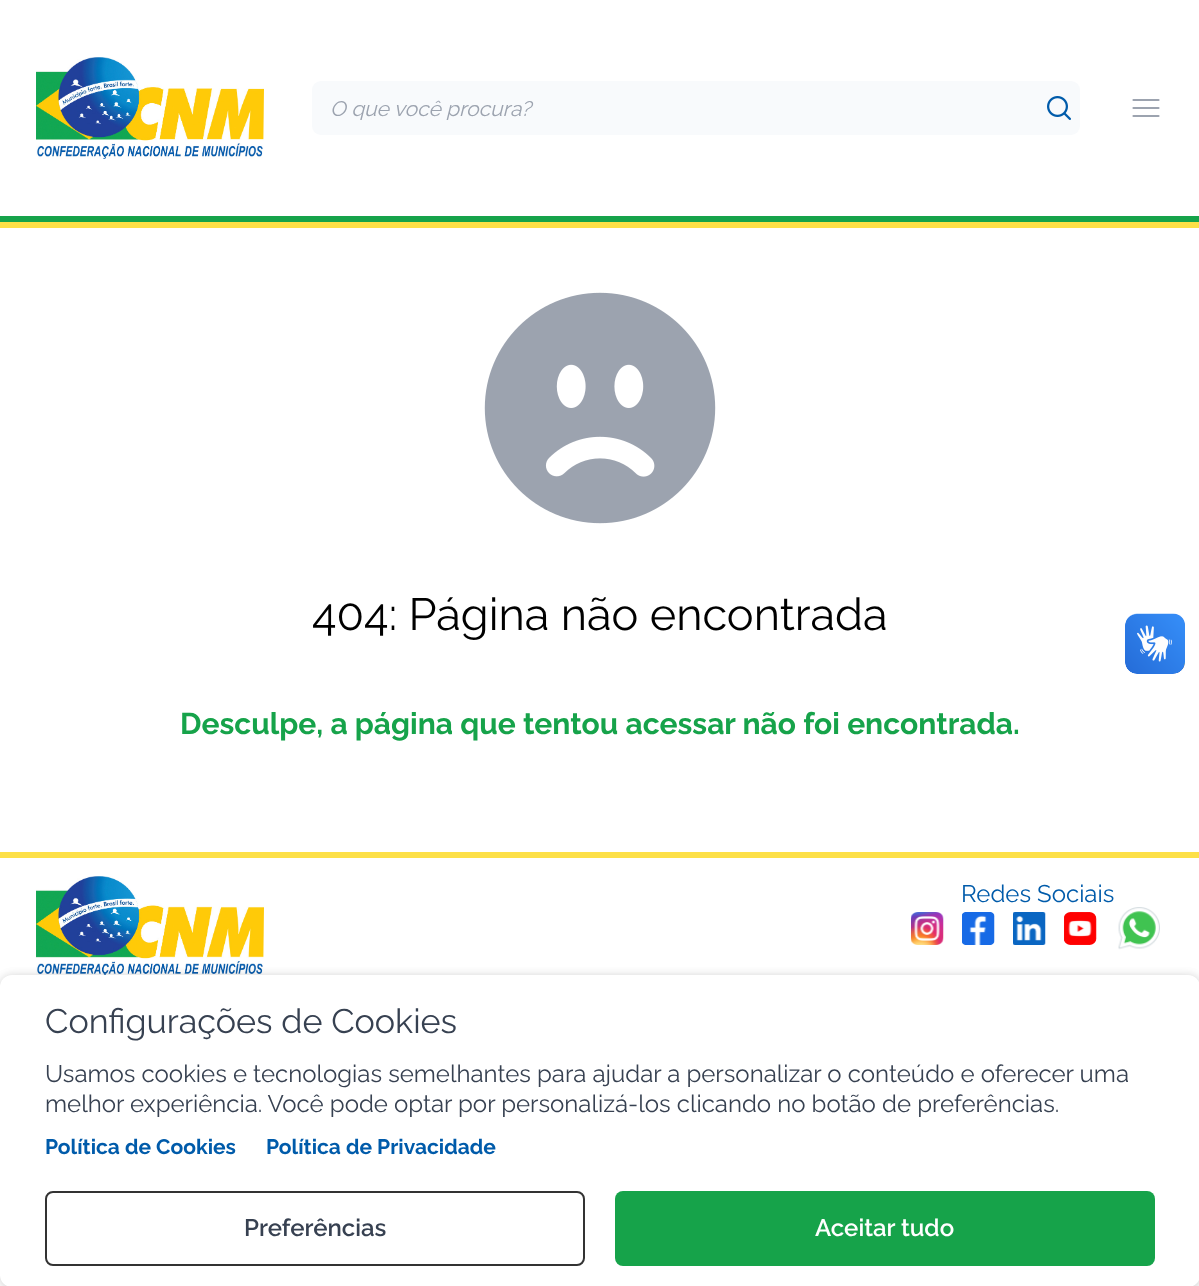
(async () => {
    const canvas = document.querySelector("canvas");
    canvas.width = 1199;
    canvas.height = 1286;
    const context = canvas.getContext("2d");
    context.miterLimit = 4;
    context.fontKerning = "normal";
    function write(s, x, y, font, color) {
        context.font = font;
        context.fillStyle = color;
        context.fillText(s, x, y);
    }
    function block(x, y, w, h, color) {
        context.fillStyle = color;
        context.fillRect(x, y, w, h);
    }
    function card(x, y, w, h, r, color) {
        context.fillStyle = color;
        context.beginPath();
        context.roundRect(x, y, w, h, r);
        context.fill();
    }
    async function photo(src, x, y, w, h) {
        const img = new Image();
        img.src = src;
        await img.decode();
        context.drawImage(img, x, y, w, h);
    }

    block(0, 0, 1199, 1286, "rgb(255, 255, 255)");
    block(0, 222, 1199, 6, "rgb(253, 224, 71)");
    await photo("media/1.png", 36, 57, 228, 102);
    card(312, 81, 768, 54, 9, "rgb(248, 250, 252)");
    context.save();
    context.beginPath();
    context.rect(330, 96, 693, 24);
    context.clip();
    write("O que você procura?", 330, 116, "italic 21px Raleway", "rgb(156, 163, 175)");
    context.restore();
    await photo("media/2.png", 1047, 96, 24, 24);
    context.beginPath();
    context.moveTo(1133.5, 100);
    context.lineTo(1158.5, 100);
    context.moveTo(1133.5, 108);
    context.lineTo(1158.5, 108);
    context.moveTo(1133.5, 116);
    context.lineTo(1158.5, 116);
    context.strokeStyle = "rgb(156, 163, 175)";
    context.lineWidth = 2.2;
    context.lineCap = "round";
    context.lineJoin = "round";
    context.stroke();
    block(0, 216, 1199, 6, "rgb(22, 163, 74)");
    await photo("media/3.png", 484, 292, 232, 232);
    write("404: Página não encontrada", 312, 630, "45px Raleway", "rgb(0, 0, 0)");
    write("Desculpe, a página que tentou acessar não foi encontrada.", 180, 734, "bold 30px Raleway", "rgb(22, 163, 74)");
    block(0, 852, 1199, 6, "rgb(253, 224, 71)");
    await photo("media/4.png", 36, 876, 228, 99);
    write("Redes Sociais", 961, 902, "24px Raleway", "rgb(0, 91, 170)");
    await photo("media/5.png", 911, 912, 33, 33);
    await photo("media/6.png", 962, 912, 33, 33);
    await photo("media/7.png", 1013, 912, 33, 33);
    await photo("media/8.png", 1064, 912, 33, 33);
    await photo("media/9.png", 1118, 907, 42, 43);
    context.fillStyle = "rgba(0, 0, 0, 0.06)";
    context.filter = "blur(5px)";
    context.beginPath();
    context.roundRect(-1, 975, 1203, 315, 14);
    context.fill();
    context.filter = "none";
    context.fillStyle = "rgba(0, 0, 0, 0.1)";
    context.filter = "blur(4.5px)";
    context.beginPath();
    context.roundRect(-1, 975, 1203, 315, 14);
    context.fill();
    context.filter = "none";
    card(0, 975, 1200, 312, 12, "rgb(255, 255, 255)");
    write("Configurações de Cookies", 45, 1033, "34.1px Raleway", "rgb(55, 65, 81)");
    write("Usamos cookies e tecnologias semelhantes para ajudar a personalizar o conteúdo e oferecer uma", 45, 1082, "24px Raleway", "rgb(55, 65, 81)");
    write("melhor experiência. Você pode optar por personalizá-los clicando no botão de preferências.", 45, 1112, "24px Raleway", "rgb(55, 65, 81)");
    write("Política de Cookies", 45, 1154, "bold 21px Raleway", "rgb(0, 91, 170)");
    write("Política de Privacidade", 266, 1154, "bold 21px Raleway", "rgb(0, 91, 170)");
    context.beginPath();
    context.roundRect(46, 1192, 538, 73, 7);
    context.strokeStyle = "rgb(51, 51, 51)";
    context.lineWidth = 2;
    context.lineJoin = "miter";
    context.stroke();
    write("Preferências", 244, 1236, "600 24px Raleway", "rgb(55, 65, 81)");
    card(615, 1191, 540, 75, 8, "rgb(22, 163, 74)");
    write("Aceitar tudo", 815, 1236, "600 24px Raleway", "rgb(255, 255, 255)");
    await photo("media/10.png", 1125, 613, 60, 61);
    await photo("media/11.png", 1125, 614, 60, 60);
})();
